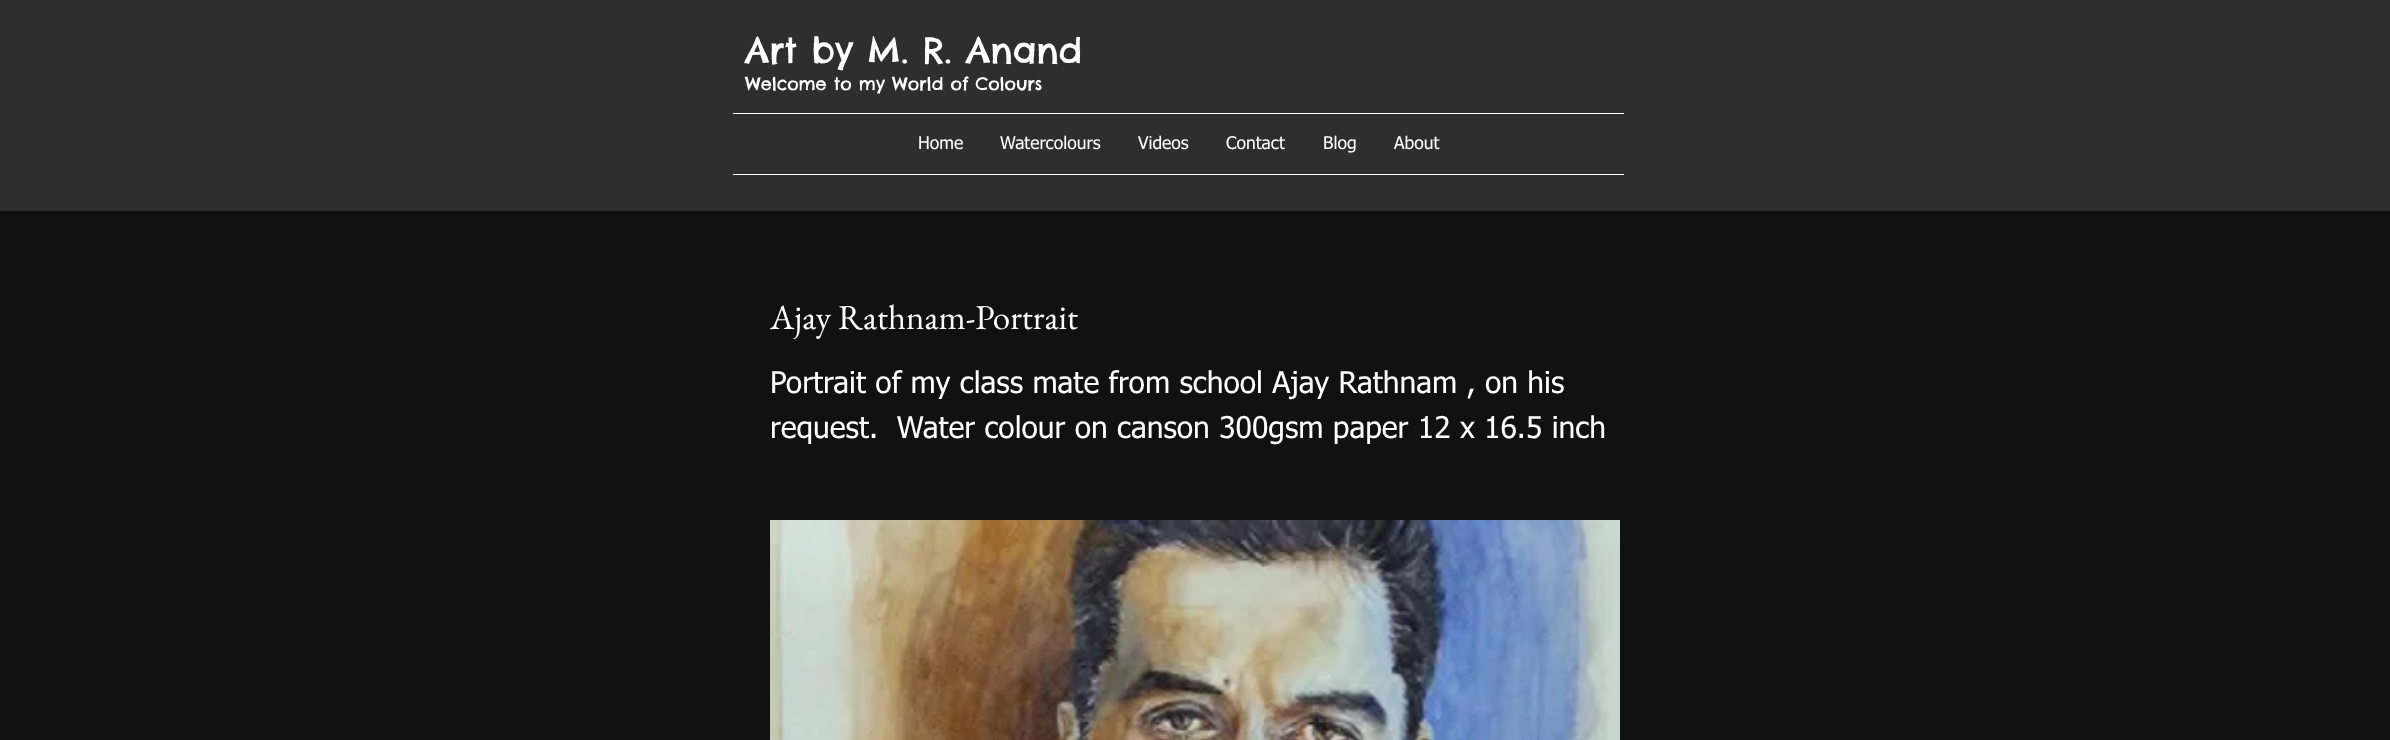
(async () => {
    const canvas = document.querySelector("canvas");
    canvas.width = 2390;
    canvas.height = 740;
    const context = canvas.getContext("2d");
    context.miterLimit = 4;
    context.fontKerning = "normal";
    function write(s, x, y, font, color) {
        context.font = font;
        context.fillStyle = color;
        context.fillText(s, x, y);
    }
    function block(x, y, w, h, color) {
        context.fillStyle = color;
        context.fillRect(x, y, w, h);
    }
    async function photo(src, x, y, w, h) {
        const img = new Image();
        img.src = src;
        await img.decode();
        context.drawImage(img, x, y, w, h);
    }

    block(0, 0, 2390, 740, "rgb(17, 17, 17)");
    block(0, 0, 2390, 211, "rgb(47, 46, 46)");
    write("Art by M. R. Anand", 745, 63, "35px Chelsea Market", "rgb(255, 255, 255)");
    write("Welcome to my World of Colours", 745, 90, "17.5px Chelsea Market", "rgb(255, 255, 255)");
    block(733, 113, 891, 1, "rgb(255, 255, 255)");
    block(733, 174, 891, 1, "rgb(255, 255, 255)");
    write("Home", 918, 149, "17.5px tahoma", "rgb(255, 255, 255)");
    write("Watercolours", 1000, 149, "17.5px tahoma", "rgb(255, 255, 255)");
    write("Videos", 1138, 149, "17.5px tahoma", "rgb(255, 255, 255)");
    write("Contact", 1226, 149, "17.5px tahoma", "rgb(255, 255, 255)");
    write("Blog", 1323, 149, "17.5px tahoma", "rgb(255, 255, 255)");
    write("About", 1394, 149, "17.5px tahoma", "rgb(255, 255, 255)");
    write("Ajay Rathnam-Portrait", 770, 329, "35px EB Garamond", "rgb(255, 255, 255)");
    write("Portrait of my class mate from school Ajay Rathnam , on his", 770, 393, "30px tahoma", "rgb(255, 255, 255)");
    write("request.  Water colour on canson 300gsm paper 12 x 16.5 inch", 770, 438, "30px tahoma", "rgb(255, 255, 255)");
    await photo("media/1.png", 770, 520, 850, 220);
})();
